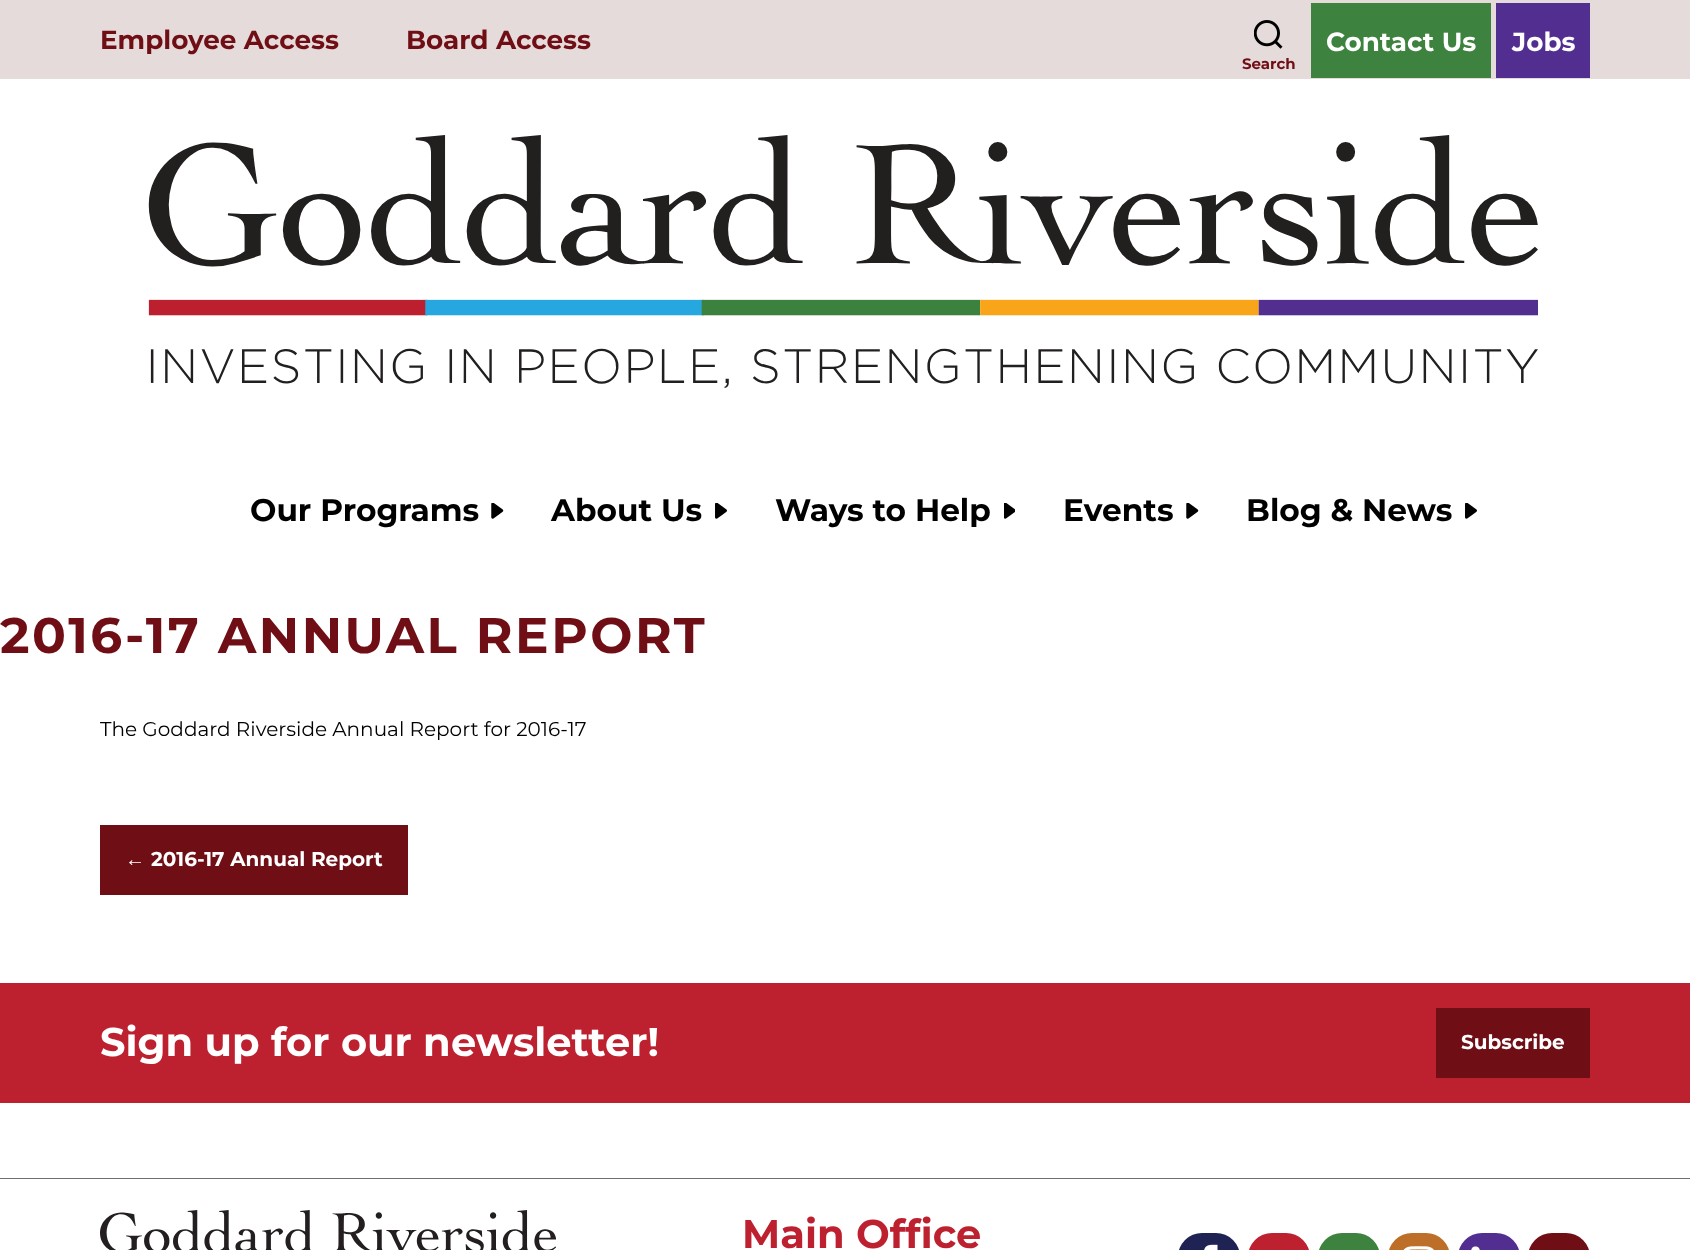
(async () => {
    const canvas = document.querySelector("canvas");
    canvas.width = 1690;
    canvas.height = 1250;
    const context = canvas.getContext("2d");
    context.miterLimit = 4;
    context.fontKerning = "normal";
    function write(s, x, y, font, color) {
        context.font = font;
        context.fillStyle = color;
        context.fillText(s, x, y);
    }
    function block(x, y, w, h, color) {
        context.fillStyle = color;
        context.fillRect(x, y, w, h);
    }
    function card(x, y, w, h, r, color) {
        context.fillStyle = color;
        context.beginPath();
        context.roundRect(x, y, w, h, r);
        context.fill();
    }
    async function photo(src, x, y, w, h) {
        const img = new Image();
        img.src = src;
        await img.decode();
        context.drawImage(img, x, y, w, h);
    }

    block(0, 0, 1690, 1250, "rgb(255, 255, 255)");
    block(0, 0, 1690, 79, "rgb(230, 219, 219)");
    write("Employee Access", 100, 49, "bold 26.25px Montserrat", "rgb(112, 14, 21)");
    write("Board Access", 406, 49, "bold 26.25px Montserrat", "rgb(112, 14, 21)");
    block(1311, 3, 180, 75, "rgb(61, 130, 62)");
    write("Contact Us", 1326, 51, "bold 26.25px Montserrat", "rgb(255, 255, 255)");
    block(1496, 3, 94, 75, "rgb(82, 46, 145)");
    write("Jobs", 1512, 51, "bold 26.25px Montserrat", "rgb(255, 255, 255)");
    await photo("media/1.png", 1254, 20, 29, 29);
    write("Search", 1242, 69, "bold 15px Montserrat", "rgb(112, 14, 21)");
    await photo("media/2.png", 148, 135, 1390, 253);
    write("Our Programs", 250, 521, "bold 31.25px Montserrat", "rgb(0, 0, 0)");
    await photo("media/3.png", 491, 503, 13, 16);
    context.beginPath();
    context.moveTo(493, 510);
    context.lineTo(497.5, 514);
    context.lineTo(502, 510);
    context.strokeStyle = "rgb(0, 0, 0)";
    context.lineWidth = 1.6;
    context.stroke();
    write("About Us", 551, 521, "bold 31.25px Montserrat", "rgb(0, 0, 0)");
    await photo("media/4.png", 715, 503, 12, 16);
    context.beginPath();
    context.moveTo(716.5, 510);
    context.lineTo(721.5, 514);
    context.lineTo(726, 510);
    context.stroke();
    write("Ways to Help", 775, 521, "bold 31.25px Montserrat", "rgb(0, 0, 0)");
    await photo("media/5.png", 1004, 503, 11, 16);
    context.beginPath();
    context.moveTo(1005.5, 510);
    context.lineTo(1010, 514);
    context.lineTo(1014.5, 510);
    context.stroke();
    write("Events", 1063, 521, "bold 31.25px Montserrat", "rgb(0, 0, 0)");
    await photo("media/3.png", 1186, 503, 13, 16);
    context.beginPath();
    context.moveTo(1188, 510);
    context.lineTo(1192.5, 514);
    context.lineTo(1197, 510);
    context.stroke();
    write("Blog & News", 1246, 521, "bold 31.25px Montserrat", "rgb(0, 0, 0)");
    await photo("media/4.png", 1465, 503, 12, 16);
    context.beginPath();
    context.moveTo(1466.5, 510);
    context.lineTo(1471.5, 514);
    context.lineTo(1476, 510);
    context.stroke();
    context.letterSpacing = "2.5px";
    write("2016-17 ANNUAL REPORT", 0, 653, "bold 50px Montserrat", "rgb(112, 14, 21)");
    context.letterSpacing = "0px";
    write("The Goddard Riverside Annual Report for 2016-17", 100, 736, "20px Montserrat", "rgb(0, 0, 0)");
    block(100, 825, 308, 70, "rgb(112, 14, 21)");
    write("←", 125, 866, "bold 20px Liberation Sans", "rgb(255, 255, 255)");
    write("2016-17 Annual Report", 151, 866, "bold 20px Montserrat", "rgb(255, 255, 255)");
    block(0, 983, 1690, 120, "rgb(189, 32, 47)");
    write("Sign up for our newsletter!", 100, 1056, "bold 40px Montserrat", "rgb(255, 255, 255)");
    block(1436, 1008, 154, 70, "rgb(112, 14, 21)");
    write("Subscribe", 1461, 1049, "bold 20px Montserrat", "rgb(255, 255, 255)");
    block(0, 1178, 1690, 1, "rgb(112, 112, 112)");
    await photo("media/6.png", 100, 1210, 456, 40);
    write("Main Office", 742, 1248, "bold 40px Montserrat", "rgb(189, 32, 47)");
    card(1178, 1233, 62, 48, 31, "rgb(31, 35, 83)");
    await photo("media/7.png", 1204, 1244, 14, 6);
    card(1248, 1233, 62, 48, 31, "rgb(189, 32, 47)");
    card(1318, 1233, 62, 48, 31, "rgb(61, 130, 62)");
    card(1388, 1233, 62, 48, 31, "rgb(189, 111, 41)");
    await photo("media/8.png", 1403, 1246, 31, 4);
    card(1458, 1233, 62, 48, 31, "rgb(82, 46, 145)");
    await photo("media/9.png", 1471, 1246, 9, 4);
    card(1528, 1233, 62, 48, 31, "rgb(112, 14, 21)");
})();
